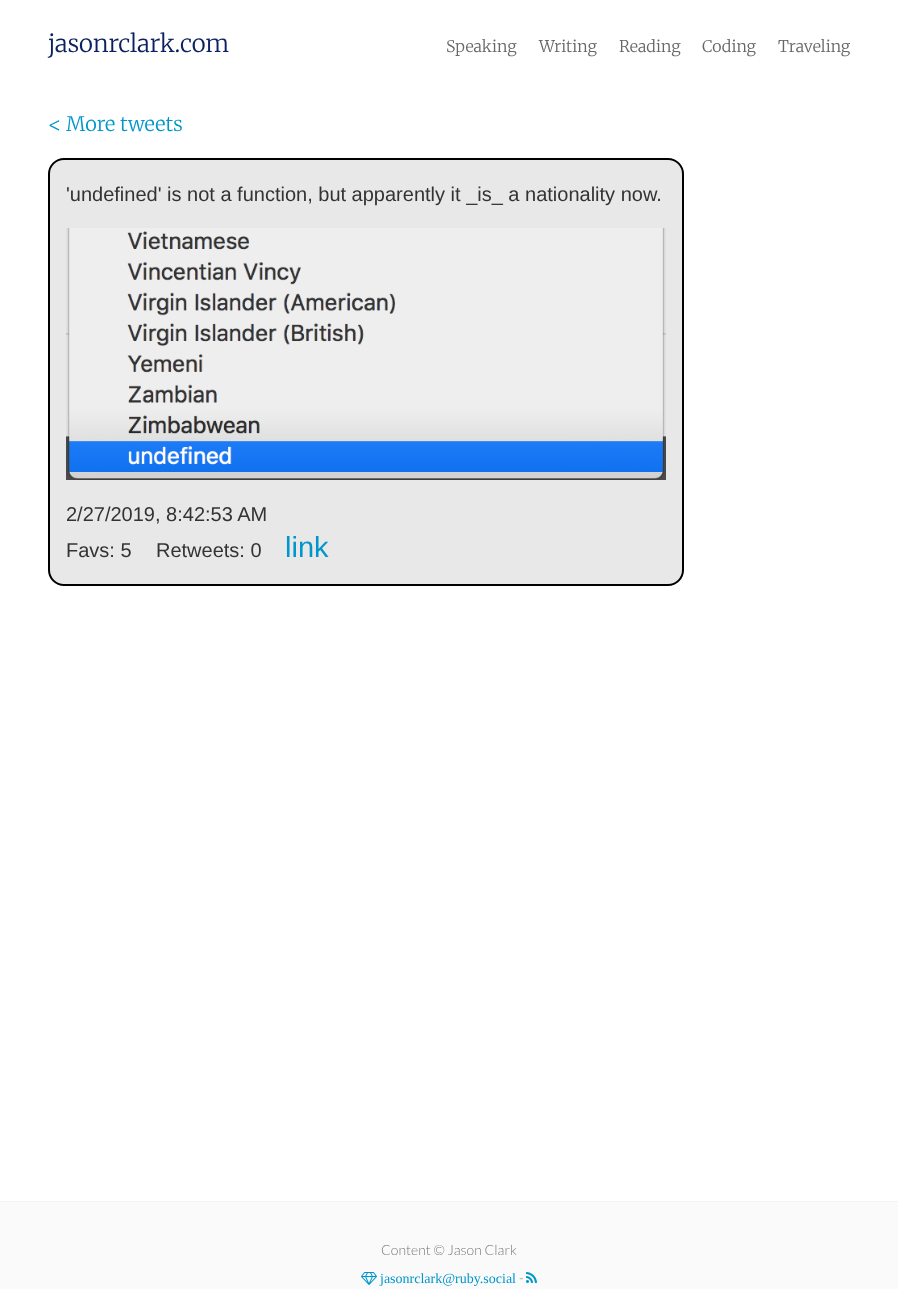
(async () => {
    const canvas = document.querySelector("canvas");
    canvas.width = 898;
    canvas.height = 1289;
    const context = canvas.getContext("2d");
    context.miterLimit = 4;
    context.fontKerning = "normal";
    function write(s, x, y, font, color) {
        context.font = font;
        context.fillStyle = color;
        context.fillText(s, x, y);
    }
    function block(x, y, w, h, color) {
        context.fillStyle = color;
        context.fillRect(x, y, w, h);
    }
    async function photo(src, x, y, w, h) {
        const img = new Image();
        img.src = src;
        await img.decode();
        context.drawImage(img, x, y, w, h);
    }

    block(0, 0, 898, 1289, "rgb(255, 255, 255)");
    write("jasonrclark.com", 48, 52, "300 24px Merriweather", "rgb(11, 33, 97)");
    write("Speaking", 446, 52, "300 16px Merriweather", "rgb(102, 102, 102)");
    write("Writing", 539, 52, "300 16px Merriweather", "rgb(102, 102, 102)");
    write("Reading", 619, 52, "300 16px Merriweather", "rgb(102, 102, 102)");
    write("Coding", 702, 52, "300 16px Merriweather", "rgb(102, 102, 102)");
    write("Traveling", 778, 52, "300 16px Merriweather", "rgb(102, 102, 102)");
    write("< More tweets", 48, 131, "300 20px Merriweather", "rgb(0, 150, 204)");
    context.fillStyle = "rgb(232, 232, 232)";
    context.beginPath();
    context.roundRect(49, 159, 634, 426, 15);
    context.fill();
    context.strokeStyle = "rgb(0, 0, 0)";
    context.lineWidth = 2;
    context.stroke();
    write("'undefined' is not a function, but apparently it _is_ a nationality now.", 66, 201, "20px Liberation Sans", "rgb(51, 51, 51)");
    await photo("media/1.png", 66, 228, 600, 252);
    write("2/27/2019, 8:42:53 AM", 66, 521, "20px Liberation Sans", "rgb(51, 51, 51)");
    write("Favs: 5", 66, 557, "20px Liberation Sans", "rgb(51, 51, 51)");
    write("Retweets: 0", 156, 557, "20px Liberation Sans", "rgb(51, 51, 51)");
    write("link", 285, 557, "29px Liberation Sans", "rgb(0, 150, 204)");
    block(0, 1202, 898, 87, "rgb(250, 250, 250)");
    block(0, 1201, 898, 1, "rgb(243, 243, 243)");
    write("Content © Jason Clark", 381, 1255, "300 14px Lato", "rgb(122, 122, 122)");
    await photo("media/2.png", 361, 1272, 16, 13);
    write("jasonrclark@ruby.social", 380, 1283, "14px Liberation Serif", "rgb(0, 150, 204)");
    write("-", 519, 1283, "300 14px Lato", "rgb(122, 122, 122)");
    await photo("media/3.png", 526, 1272, 11, 11);
})();
